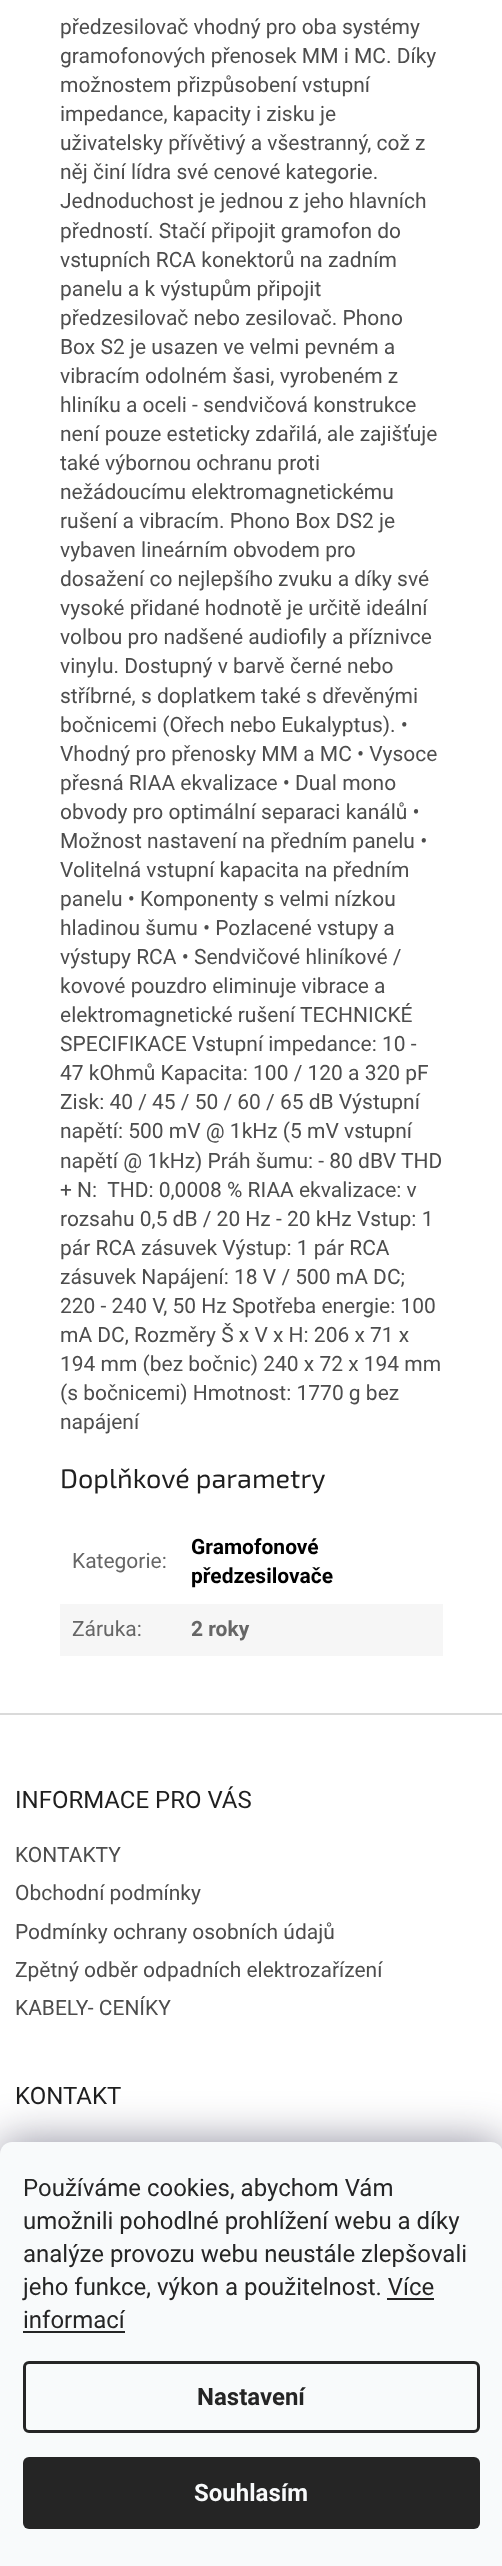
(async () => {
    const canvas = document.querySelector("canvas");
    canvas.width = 502;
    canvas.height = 2566;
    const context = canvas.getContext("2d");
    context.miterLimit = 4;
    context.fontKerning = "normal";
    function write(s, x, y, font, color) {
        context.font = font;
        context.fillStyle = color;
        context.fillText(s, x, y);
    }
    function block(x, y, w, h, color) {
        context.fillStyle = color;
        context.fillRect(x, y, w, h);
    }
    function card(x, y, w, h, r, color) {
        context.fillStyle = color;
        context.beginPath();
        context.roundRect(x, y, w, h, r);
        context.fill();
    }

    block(0, 0, 502, 2566, "rgb(255, 255, 255)");
    write("předzesilovač vhodný pro oba systémy", 60, 34, "21px Roboto", "rgb(77, 77, 77)");
    write("gramofonových přenosek MM i MC. Díky", 60, 63, "21px Roboto", "rgb(77, 77, 77)");
    write("možnostem přizpůsobení vstupní", 60, 92, "21px Roboto", "rgb(77, 77, 77)");
    write("impedance, kapacity i zisku je", 60, 121, "21px Roboto", "rgb(77, 77, 77)");
    write("uživatelsky přívětivý a všestranný, což z", 60, 150, "21px Roboto", "rgb(77, 77, 77)");
    write("něj činí lídra své cenové kategorie.", 60, 179, "21px Roboto", "rgb(77, 77, 77)");
    write("Jednoduchost je jednou z jeho hlavních", 60, 208, "21px Roboto", "rgb(77, 77, 77)");
    write("předností. Stačí připojit gramofon do", 60, 238, "21px Roboto", "rgb(77, 77, 77)");
    write("vstupních RCA konektorů na zadním", 60, 267, "21px Roboto", "rgb(77, 77, 77)");
    write("panelu a k výstupům připojit", 60, 296, "21px Roboto", "rgb(77, 77, 77)");
    write("předzesilovač nebo zesilovač. Phono", 60, 325, "21px Roboto", "rgb(77, 77, 77)");
    write("Box S2 je usazen ve velmi pevném a", 60, 354, "21px Roboto", "rgb(77, 77, 77)");
    write("vibracím odolném šasi, vyrobeném z", 60, 383, "21px Roboto", "rgb(77, 77, 77)");
    write("hliníku a oceli - sendvičová konstrukce", 60, 412, "21px Roboto", "rgb(77, 77, 77)");
    write("není pouze esteticky zdařilá, ale zajišťuje", 60, 441, "21px Roboto", "rgb(77, 77, 77)");
    write("také výbornou ochranu proti", 60, 470, "21px Roboto", "rgb(77, 77, 77)");
    write("nežádoucímu elektromagnetickému", 60, 499, "21px Roboto", "rgb(77, 77, 77)");
    write("rušení a vibracím. Phono Box DS2 je", 60, 528, "21px Roboto", "rgb(77, 77, 77)");
    write("vybaven lineárním obvodem pro", 60, 557, "21px Roboto", "rgb(77, 77, 77)");
    write("dosažení co nejlepšího zvuku a díky své", 60, 586, "21px Roboto", "rgb(77, 77, 77)");
    write("vysoké přidané hodnotě je určitě ideální", 60, 615, "21px Roboto", "rgb(77, 77, 77)");
    write("volbou pro nadšené audiofily a příznivce", 60, 644, "21px Roboto", "rgb(77, 77, 77)");
    write("vinylu. Dostupný v barvě černé nebo", 60, 673, "21px Roboto", "rgb(77, 77, 77)");
    write("stříbrné, s doplatkem také s dřevěnými", 60, 703, "21px Roboto", "rgb(77, 77, 77)");
    write("bočnicemi (Ořech nebo Eukalyptus). •", 60, 732, "21px Roboto", "rgb(77, 77, 77)");
    write("Vhodný pro přenosky MM a MC • Vysoce", 60, 761, "21px Roboto", "rgb(77, 77, 77)");
    write("přesná RIAA ekvalizace • Dual mono", 60, 790, "21px Roboto", "rgb(77, 77, 77)");
    write("obvody pro optimální separaci kanálů •", 60, 819, "21px Roboto", "rgb(77, 77, 77)");
    write("Možnost nastavení na předním panelu •", 60, 848, "21px Roboto", "rgb(77, 77, 77)");
    write("Volitelná vstupní kapacita na předním", 60, 877, "21px Roboto", "rgb(77, 77, 77)");
    write("panelu • Komponenty s velmi nízkou", 60, 906, "21px Roboto", "rgb(77, 77, 77)");
    write("hladinou šumu • Pozlacené vstupy a", 60, 935, "21px Roboto", "rgb(77, 77, 77)");
    write("výstupy RCA • Sendvičové hliníkové /", 60, 964, "21px Roboto", "rgb(77, 77, 77)");
    write("kovové pouzdro eliminuje vibrace a", 60, 993, "21px Roboto", "rgb(77, 77, 77)");
    write("elektromagnetické rušení TECHNICKÉ", 60, 1022, "21px Roboto", "rgb(77, 77, 77)");
    write("SPECIFIKACE Vstupní impedance: 10 -", 60, 1051, "21px Roboto", "rgb(77, 77, 77)");
    write("47 kOhmů Kapacita: 100 / 120 a 320 pF", 60, 1080, "21px Roboto", "rgb(77, 77, 77)");
    write("Zisk: 40 / 45 / 50 / 60 / 65 dB Výstupní", 60, 1109, "21px Roboto", "rgb(77, 77, 77)");
    write("napětí: 500 mV @ 1kHz (5 mV vstupní", 60, 1138, "21px Roboto", "rgb(77, 77, 77)");
    write("napětí @ 1kHz) Práh šumu: - 80 dBV THD", 60, 1168, "21px Roboto", "rgb(77, 77, 77)");
    write("+ N:  THD: 0,0008 % RIAA ekvalizace: v", 60, 1197, "21px Roboto", "rgb(77, 77, 77)");
    write("rozsahu 0,5 dB / 20 Hz - 20 kHz Vstup: 1", 60, 1226, "21px Roboto", "rgb(77, 77, 77)");
    write("pár RCA zásuvek Výstup: 1 pár RCA", 60, 1255, "21px Roboto", "rgb(77, 77, 77)");
    write("zásuvek Napájení: 18 V / 500 mA DC;", 60, 1284, "21px Roboto", "rgb(77, 77, 77)");
    write("220 - 240 V, 50 Hz Spotřeba energie: 100", 60, 1313, "21px Roboto", "rgb(77, 77, 77)");
    write("mA DC, Rozměry Š x V x H: 206 x 71 x", 60, 1342, "21px Roboto", "rgb(77, 77, 77)");
    write("194 mm (bez bočnic) 240 x 72 x 194 mm", 60, 1371, "21px Roboto", "rgb(77, 77, 77)");
    write("(s bočnicemi) Hmotnost: 1770 g bez", 60, 1400, "21px Roboto", "rgb(77, 77, 77)");
    write("napájení", 60, 1429, "21px Roboto", "rgb(77, 77, 77)");
    write("Doplňkové parametry", 60, 1488, "27px 'Exo 2'", "rgb(31, 31, 31)");
    write("Kategorie:", 72, 1568, "21px Roboto", "rgb(102, 102, 102)");
    write("Gramofonové", 191, 1554, "bold 21px Roboto", "rgb(0, 0, 0)");
    write("předzesilovače", 191, 1583, "bold 21px Roboto", "rgb(0, 0, 0)");
    block(60, 1604, 383, 52, "rgb(246, 246, 246)");
    write("Záruka:", 72, 1636, "21px Roboto", "rgb(102, 102, 102)");
    write("2 roky", 191, 1636, "bold 21px Roboto", "rgb(102, 102, 102)");
    block(0, 1713, 502, 2, "rgb(218, 218, 218)");
    write("INFORMACE PRO VÁS", 15, 1808, "24px Roboto", "rgb(31, 31, 31)");
    write("KONTAKTY", 15, 1862, "21px Roboto", "rgb(77, 77, 77)");
    write("Obchodní podmínky", 15, 1900, "21px Roboto", "rgb(77, 77, 77)");
    write("Podmínky ochrany osobních údajů", 15, 1939, "21px Roboto", "rgb(77, 77, 77)");
    write("Zpětný odběr odpadních elektrozařízení", 15, 1977, "21px Roboto", "rgb(77, 77, 77)");
    write("KABELY- CENÍKY", 15, 2015, "21px Roboto", "rgb(77, 77, 77)");
    write("KONTAKT", 15, 2104, "24px Roboto", "rgb(31, 31, 31)");
    context.fillStyle = "rgba(27, 25, 57, 0.5)";
    context.filter = "blur(22.5px)";
    context.beginPath();
    context.roundRect(0, 2142, 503, 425, 12);
    context.fill();
    context.filter = "none";
    context.fillStyle = "rgb(248, 250, 251)";
    context.beginPath();
    context.moveTo(12, 2142);
    context.lineTo(491, 2142);
    context.bezierCurveTo(497.5, 2142, 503, 2147.5, 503, 2154);
    context.lineTo(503, 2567);
    context.lineTo(0, 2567);
    context.lineTo(0, 2154);
    context.bezierCurveTo(0, 2147.5, 5.5, 2142, 12, 2142);
    context.closePath();
    context.fill();
    write("Používáme cookies, abychom Vám", 23, 2196, "24px Roboto", "rgb(37, 37, 37)");
    write("umožnili pohodlné prohlížení webu a díky", 23, 2229, "24px Roboto", "rgb(37, 37, 37)");
    write("analýze provozu webu neustále zlepšovali", 23, 2262, "24px Roboto", "rgb(37, 37, 37)");
    write("jeho funkce, výkon a použitelnost. Více", 23, 2295, "24px Roboto", "rgb(37, 37, 37)");
    write("informací", 23, 2328, "24px Roboto", "rgb(37, 37, 37)");
    block(387, 2298, 47, 2, "rgb(37, 37, 37)");
    block(23, 2331, 102, 2, "rgb(37, 37, 37)");
    context.beginPath();
    context.roundRect(24.5, 2362.5, 454, 69, 4.5);
    context.strokeStyle = "rgb(37, 37, 37)";
    context.lineWidth = 3;
    context.stroke();
    write("Nastavení", 197, 2405, "bold 24px Roboto", "rgb(37, 37, 37)");
    card(23, 2457, 457, 72, 6, "rgb(37, 37, 37)");
    write("Souhlasím", 194, 2501, "bold 24px Roboto", "rgb(248, 250, 251)");
})();
